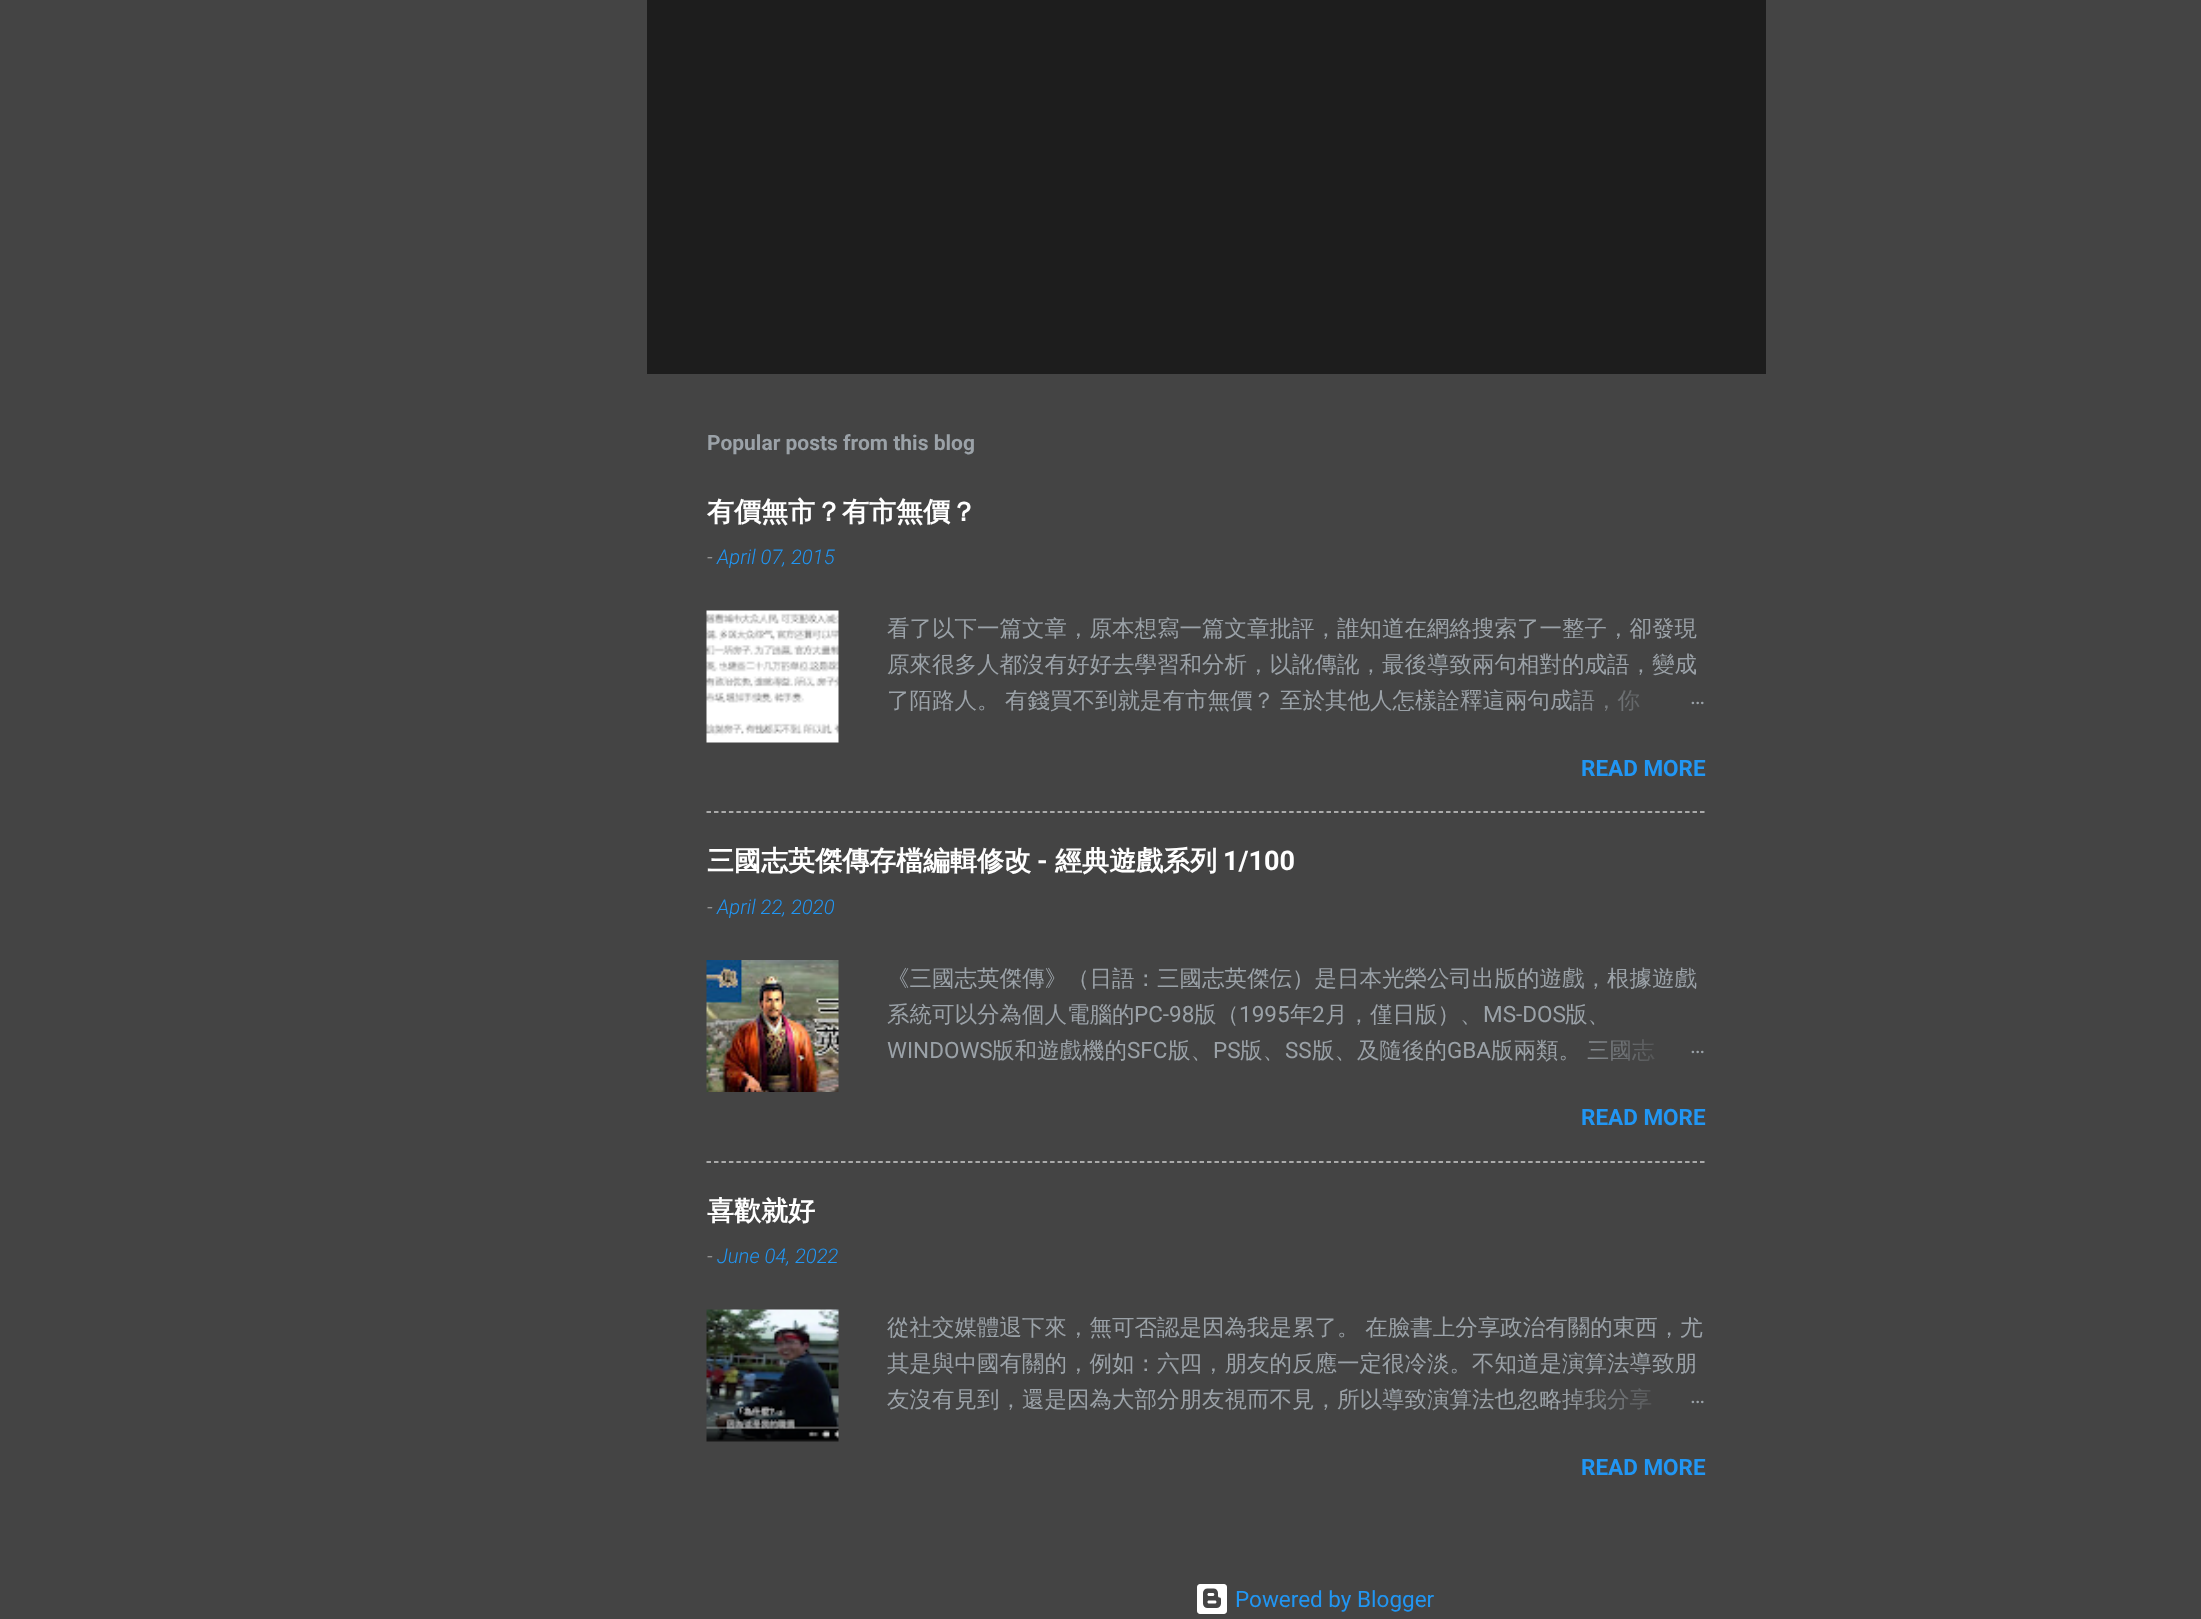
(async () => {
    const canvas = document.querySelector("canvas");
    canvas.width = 2201;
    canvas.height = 1619;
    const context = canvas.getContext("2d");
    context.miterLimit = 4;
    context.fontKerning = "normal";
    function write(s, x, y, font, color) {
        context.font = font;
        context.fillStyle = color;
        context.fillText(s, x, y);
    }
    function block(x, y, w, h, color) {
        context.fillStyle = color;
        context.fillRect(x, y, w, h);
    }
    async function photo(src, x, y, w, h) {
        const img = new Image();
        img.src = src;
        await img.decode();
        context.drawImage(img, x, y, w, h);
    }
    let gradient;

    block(0, 0, 2201, 1619, "rgb(68, 68, 68)");
    block(647, 0, 1119, 374, "rgb(29, 29, 29)");
    write("Popular posts from this blog", 707, 450, "bold 21px Roboto", "rgb(155, 162, 168)");
    write("有價無市？有市無價？", 707, 521, "bold 27px WenQuanYi Zen Hei", "rgb(255, 255, 255)");
    write("-", 707, 564, "italic 300 20.25px Roboto", "rgb(169, 169, 169)");
    write("April 07, 2015", 717, 564, "italic 300 20.25px Roboto", "rgb(33, 150, 243)");
    await photo("media/1.png", 706, 610, 133, 133);
    write("看了以下一篇文章，原本想寫一篇文章批評，誰知道在網絡搜索了一整子，卻發現", 887, 636, "500 22.5px WenQuanYi Zen Hei", "rgb(155, 162, 168)");
    write("原來很多人都沒有好好去學習和分析，以訛傳訛，最後導致兩句相對的成語，變成", 887, 672, "500 22.5px WenQuanYi Zen Hei", "rgb(155, 162, 168)");
    write("了陌路人。", 887, 708, "500 22.5px WenQuanYi Zen Hei", "rgb(155, 162, 168)");
    write("有錢買不到就是有市無價？", 1005, 708, "500 22.5px WenQuanYi Zen Hei", "rgb(155, 162, 168)");
    write("至於其他人怎樣詮釋這兩句成語，你", 1280, 708, "500 22.5px WenQuanYi Zen Hei", "rgb(155, 162, 168)");
    gradient = context.createLinearGradient(1706, 701, 1562, 701);
    gradient.addColorStop(0, "rgb(68, 68, 68)");
    gradient.addColorStop(0.2, "rgb(68, 68, 68)");
    gradient.addColorStop(1, "rgba(68, 68, 68, 0)");
    context.fillStyle = gradient;
    context.fillRect(1564, 689, 76, 22);
    write("…", 1690, 704, "22.5px Roboto", "rgb(155, 162, 168)");
    write("READ MORE", 1581, 776, "bold 22.5px Roboto", "rgb(33, 150, 243)");
    context.beginPath();
    context.moveTo(706.5, 812);
    context.lineTo(1705.5, 812);
    context.strokeStyle = "rgb(204, 204, 204)";
    context.lineWidth = 1.5;
    context.setLineDash([4.5, 2.97]);
    context.stroke();
    write("三國志英傑傳存檔編輯修改", 707, 870, "bold 27px WenQuanYi Zen Hei", "rgb(255, 255, 255)");
    write("-", 1037, 870, "bold 27px Roboto", "rgb(255, 255, 255)");
    write("經典遊戲系列", 1055, 870, "bold 27px WenQuanYi Zen Hei", "rgb(255, 255, 255)");
    write("1/100", 1223, 870, "bold 27px Roboto", "rgb(255, 255, 255)");
    write("-", 707, 914, "italic 300 20.25px Roboto", "rgb(169, 169, 169)");
    write("April 22, 2020", 717, 914, "italic 300 20.25px Roboto", "rgb(33, 150, 243)");
    await photo("media/2.png", 706, 960, 133, 132);
    write("《三國志英傑傳》（日語：三國志英傑伝）是日本光榮公司出版的遊戲，根據遊戲", 887, 986, "500 22.5px WenQuanYi Zen Hei", "rgb(155, 162, 168)");
    write("系統可以分為個人電腦的", 887, 1022, "500 22.5px WenQuanYi Zen Hei", "rgb(155, 162, 168)");
    write("PC-98", 1134, 1022, "22.5px Roboto", "rgb(155, 162, 168)");
    write("版（", 1194, 1022, "500 22.5px WenQuanYi Zen Hei", "rgb(155, 162, 168)");
    write("1995", 1239, 1022, "22.5px Roboto", "rgb(155, 162, 168)");
    write("年", 1290, 1022, "500 22.5px WenQuanYi Zen Hei", "rgb(155, 162, 168)");
    write("2", 1312, 1022, "22.5px Roboto", "rgb(155, 162, 168)");
    write("月，僅日版）、", 1325, 1022, "500 22.5px WenQuanYi Zen Hei", "rgb(155, 162, 168)");
    write("MS-DOS", 1483, 1022, "22.5px Roboto", "rgb(155, 162, 168)");
    write("版、", 1565, 1022, "500 22.5px WenQuanYi Zen Hei", "rgb(155, 162, 168)");
    write("WINDOWS", 887, 1058, "22.5px Roboto", "rgb(155, 162, 168)");
    write("版和遊戲機的", 992, 1058, "500 22.5px WenQuanYi Zen Hei", "rgb(155, 162, 168)");
    write("SFC", 1127, 1058, "22.5px Roboto", "rgb(155, 162, 168)");
    write("版、", 1168, 1058, "500 22.5px WenQuanYi Zen Hei", "rgb(155, 162, 168)");
    write("PS", 1213, 1058, "22.5px Roboto", "rgb(155, 162, 168)");
    write("版、", 1240, 1058, "500 22.5px WenQuanYi Zen Hei", "rgb(155, 162, 168)");
    write("SS", 1285, 1058, "22.5px Roboto", "rgb(155, 162, 168)");
    write("版、及隨後的", 1312, 1058, "500 22.5px WenQuanYi Zen Hei", "rgb(155, 162, 168)");
    write("GBA", 1447, 1058, "22.5px Roboto", "rgb(155, 162, 168)");
    write("版兩類。", 1491, 1058, "500 22.5px WenQuanYi Zen Hei", "rgb(155, 162, 168)");
    write("三國志", 1587, 1058, "500 22.5px WenQuanYi Zen Hei", "rgb(155, 162, 168)");
    gradient = context.createLinearGradient(1706, 1050, 1562, 1050);
    gradient.addColorStop(0, "rgb(68, 68, 68)");
    gradient.addColorStop(0.2, "rgb(68, 68, 68)");
    gradient.addColorStop(1, "rgba(68, 68, 68, 0)");
    context.fillStyle = gradient;
    context.fillRect(1587, 1039, 67, 22);
    write("…", 1690, 1053, "22.5px Roboto", "rgb(155, 162, 168)");
    write("READ MORE", 1581, 1125, "bold 22.5px Roboto", "rgb(33, 150, 243)");
    context.beginPath();
    context.moveTo(706.5, 1162);
    context.lineTo(1705.5, 1162);
    context.stroke();
    write("喜歡就好", 707, 1220, "bold 27px WenQuanYi Zen Hei", "rgb(255, 255, 255)");
    write("-", 707, 1263, "italic 300 20.25px Roboto", "rgb(169, 169, 169)");
    write("June 04, 2022", 717, 1263, "italic 300 20.25px Roboto", "rgb(33, 150, 243)");
    await photo("media/3.png", 706, 1309, 133, 133);
    context.wordSpacing = "-1px";
    write("從社交媒體退下來，無可否認是因為我是累了。 在臉書上分享政治有關的東西，尤", 887, 1335, "500 22.5px WenQuanYi Zen Hei", "rgb(155, 162, 168)");
    context.wordSpacing = "0px";
    write("其是與中國有關的，例如：六四，朋友的反應一定很冷淡。不知道是演算法導致朋", 887, 1371, "500 22.5px WenQuanYi Zen Hei", "rgb(155, 162, 168)");
    write("友沒有見到，還是因為大部分朋友視而不見，所以導致演算法也忽略掉我分享", 887, 1407, "500 22.5px WenQuanYi Zen Hei", "rgb(155, 162, 168)");
    gradient = context.createLinearGradient(1706, 1400, 1562, 1400);
    gradient.addColorStop(0, "rgb(68, 68, 68)");
    gradient.addColorStop(0.2, "rgb(68, 68, 68)");
    gradient.addColorStop(1, "rgba(68, 68, 68, 0)");
    context.fillStyle = gradient;
    context.fillRect(1564, 1388, 87, 22);
    write("…", 1690, 1403, "22.5px Roboto", "rgb(155, 162, 168)");
    write("READ MORE", 1581, 1475, "bold 22.5px Roboto", "rgb(33, 150, 243)");
    await photo("media/4.png", 1197, 1584, 30, 30);
    write("Powered by Blogger", 1235, 1607, "22.5px Roboto", "rgb(33, 150, 243)");
})();
